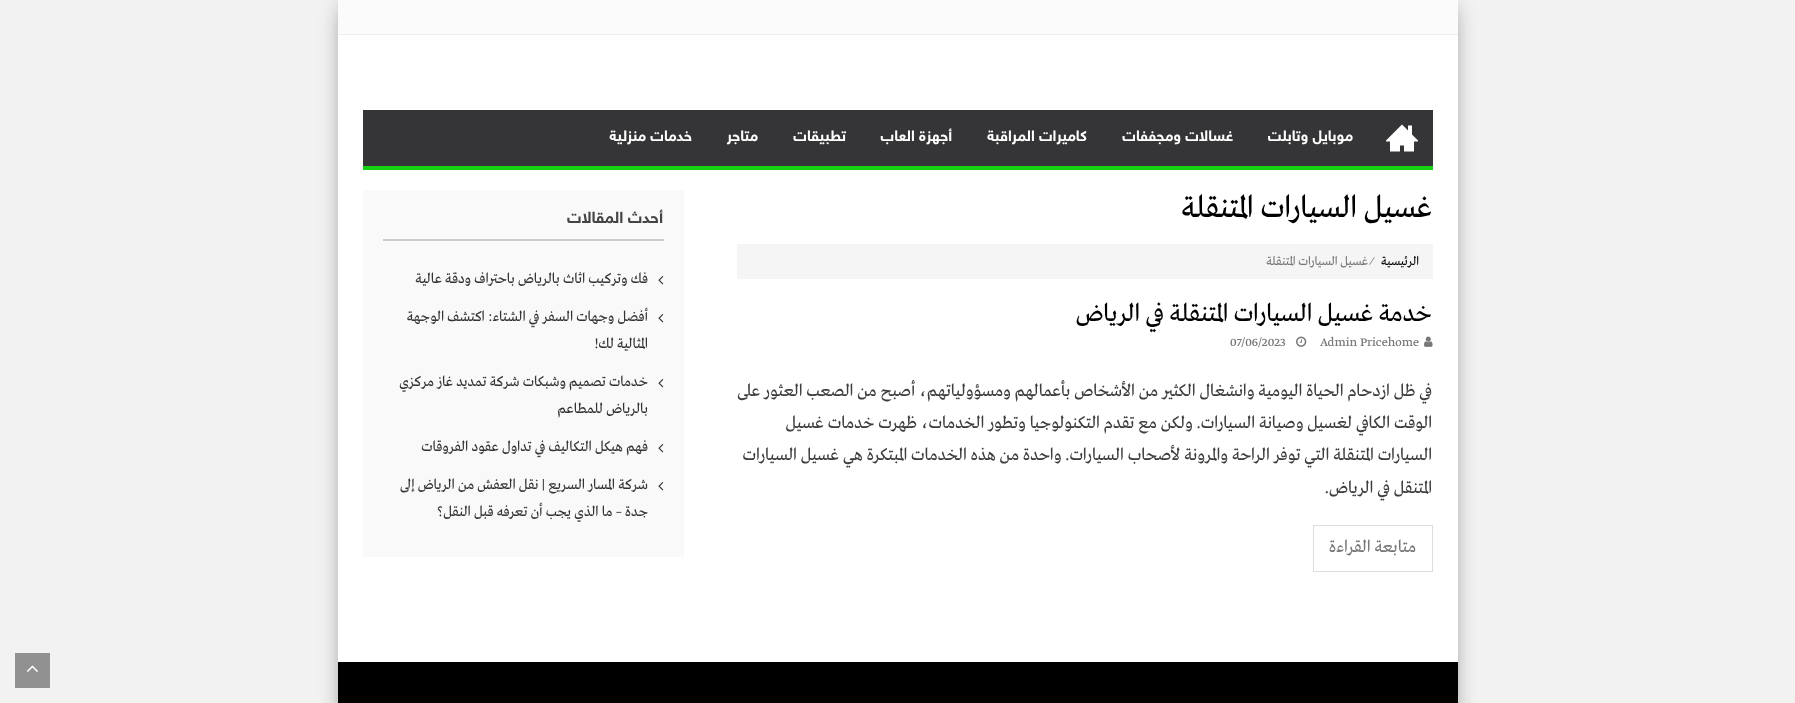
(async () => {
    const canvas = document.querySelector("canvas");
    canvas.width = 1795;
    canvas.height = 703;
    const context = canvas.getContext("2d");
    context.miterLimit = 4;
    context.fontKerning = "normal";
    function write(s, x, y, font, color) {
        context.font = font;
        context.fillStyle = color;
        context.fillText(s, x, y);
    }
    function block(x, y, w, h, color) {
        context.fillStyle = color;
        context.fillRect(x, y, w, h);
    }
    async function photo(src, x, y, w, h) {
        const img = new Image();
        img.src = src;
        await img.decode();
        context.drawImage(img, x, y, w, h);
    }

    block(0, 0, 1795, 703, "rgb(242, 242, 242)");
    context.fillStyle = "rgb(97, 97, 97)";
    context.filter = "blur(12px)";
    context.beginPath();
    context.rect(346, 8, 1104, 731);
    context.fill();
    context.filter = "none";
    block(338, 35, 1120, 627, "rgb(255, 255, 255)");
    block(338, 0, 1120, 34, "rgb(251, 251, 251)");
    block(338, 34, 1120, 1, "rgb(238, 238, 238)");
    block(363, 110, 1070, 56, "rgb(53, 53, 55)");
    block(363, 166, 1070, 4, "rgb(21, 209, 18)");
    await photo("media/1.png", 1386, 124, 32, 28);
    context.direction = "rtl";
    write("موبايل وتابلت", 1353, 141, "bold 15px 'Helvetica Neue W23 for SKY'", "rgb(255, 255, 255)");
    write("غسالات ومجففات", 1233, 141, "bold 15px 'Helvetica Neue W23 for SKY'", "rgb(255, 255, 255)");
    write("كاميرات المراقبة", 1087, 141, "bold 15px 'Helvetica Neue W23 for SKY'", "rgb(255, 255, 255)");
    write("أجهزة العاب", 952, 141, "bold 15px 'Helvetica Neue W23 for SKY'", "rgb(255, 255, 255)");
    write("تطبيقات", 846, 141, "bold 15px 'Helvetica Neue W23 for SKY'", "rgb(255, 255, 255)");
    write("متاجر", 758, 141, "bold 15px 'Helvetica Neue W23 for SKY'", "rgb(255, 255, 255)");
    write("خدمات منزلية", 692, 141, "bold 15px 'Helvetica Neue W23 for SKY'", "rgb(255, 255, 255)");
    write("غسيل السيارات المتنقلة", 1432, 217, "32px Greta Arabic", "rgb(0, 0, 0)");
    block(737, 244, 696, 35, "rgb(245, 245, 245)");
    write("الرئيسية", 1419, 265, "13px Greta Arabic", "rgb(0, 0, 0)");
    context.direction = "ltr";
    write("⁄", 1371, 265, "14px Greta Arabic", "rgb(119, 119, 119)");
    context.direction = "rtl";
    write("غسيل السيارات المتنقلة", 1368, 265, "13px Greta Arabic", "rgb(119, 119, 119)");
    write("خدمة غسيل السيارات المتنقلة في الرياض", 1432, 321, "26px Greta Arabic", "rgb(0, 0, 0)");
    await photo("media/2.png", 1424, 336, 9, 11);
    context.direction = "ltr";
    write("Admin Pricehome", 1320, 346, "13px Greta Arabic", "rgb(119, 119, 119)");
    await photo("media/3.png", 1296, 336, 11, 11);
    write("07/06/2023", 1230, 346, "13px Greta Arabic", "rgb(119, 119, 119)");
    context.direction = "rtl";
    write("في ظل ازدحام الحياة اليومية وانشغال الكثير من الأشخاص بأعمالهم ومسؤولياتهم، أصبح من الصعب العثور على", 1432, 396, "18px Greta Arabic", "rgb(61, 61, 62)");
    write("الوقت الكافي لغسيل وصيانة السيارات. ولكن مع تقدم التكنولوجيا وتطور الخدمات، ظهرت خدمات غسيل", 1432, 428, "18px Greta Arabic", "rgb(61, 61, 62)");
    write("السيارات المتنقلة التي توفر الراحة والمرونة لأصحاب السيارات. واحدة من هذه الخدمات المبتكرة هي غسيل السيارات", 1432, 460, "18px Greta Arabic", "rgb(61, 61, 62)");
    write("المتنقل في الرياض.", 1432, 493, "18px Greta Arabic", "rgb(61, 61, 62)");
    context.strokeStyle = "rgb(221, 221, 221)";
    context.strokeRect(1313.5, 525.5, 119, 46);
    write("متابعة القراءة", 1416, 552, "18px Greta Arabic", "rgb(119, 119, 119)");
    block(363, 190, 321, 367, "rgb(249, 249, 249)");
    block(383, 239, 281, 2, "rgb(204, 204, 204)");
    write("أحدث المقالات", 663, 223, "bold 16px 'Helvetica Neue W23 for SKY'", "rgb(68, 68, 68)");
    await photo("media/4.png", 658, 276, 6, 9);
    write("فك وتركيب اثاث بالرياض باحتراف ودقة عالية", 648, 283, "15px Greta Arabic", "rgb(51, 51, 51)");
    await photo("media/4.png", 658, 314, 6, 9);
    write("أفضل وجهات السفر في الشتاء: اكتشف الوجهة", 648, 321, "15px Greta Arabic", "rgb(51, 51, 51)");
    write("المثالية لك!", 648, 348, "15px Greta Arabic", "rgb(51, 51, 51)");
    await photo("media/4.png", 658, 379, 6, 9);
    write("خدمات تصميم وشبكات شركة تمديد غاز مركزي", 648, 386, "15px Greta Arabic", "rgb(51, 51, 51)");
    write("بالرياض للمطاعم", 648, 413, "15px Greta Arabic", "rgb(51, 51, 51)");
    await photo("media/4.png", 658, 444, 6, 9);
    write("فهم هيكل التكاليف في تداول عقود الفروقات", 648, 451, "15px Greta Arabic", "rgb(51, 51, 51)");
    await photo("media/4.png", 658, 482, 6, 9);
    write("شركة المسار السريع | نقل العفش من الرياض إلى", 648, 489, "15px Greta Arabic", "rgb(51, 51, 51)");
    write("جدة – ما الذي يجب أن تعرفه قبل النقل؟", 648, 516, "15px Greta Arabic", "rgb(51, 51, 51)");
    block(338, 662, 1120, 41, "rgb(0, 0, 0)");
    block(15, 653, 35, 35, "rgb(145, 145, 145)");
    await photo("media/5.png", 27, 665, 11, 7);
})();
